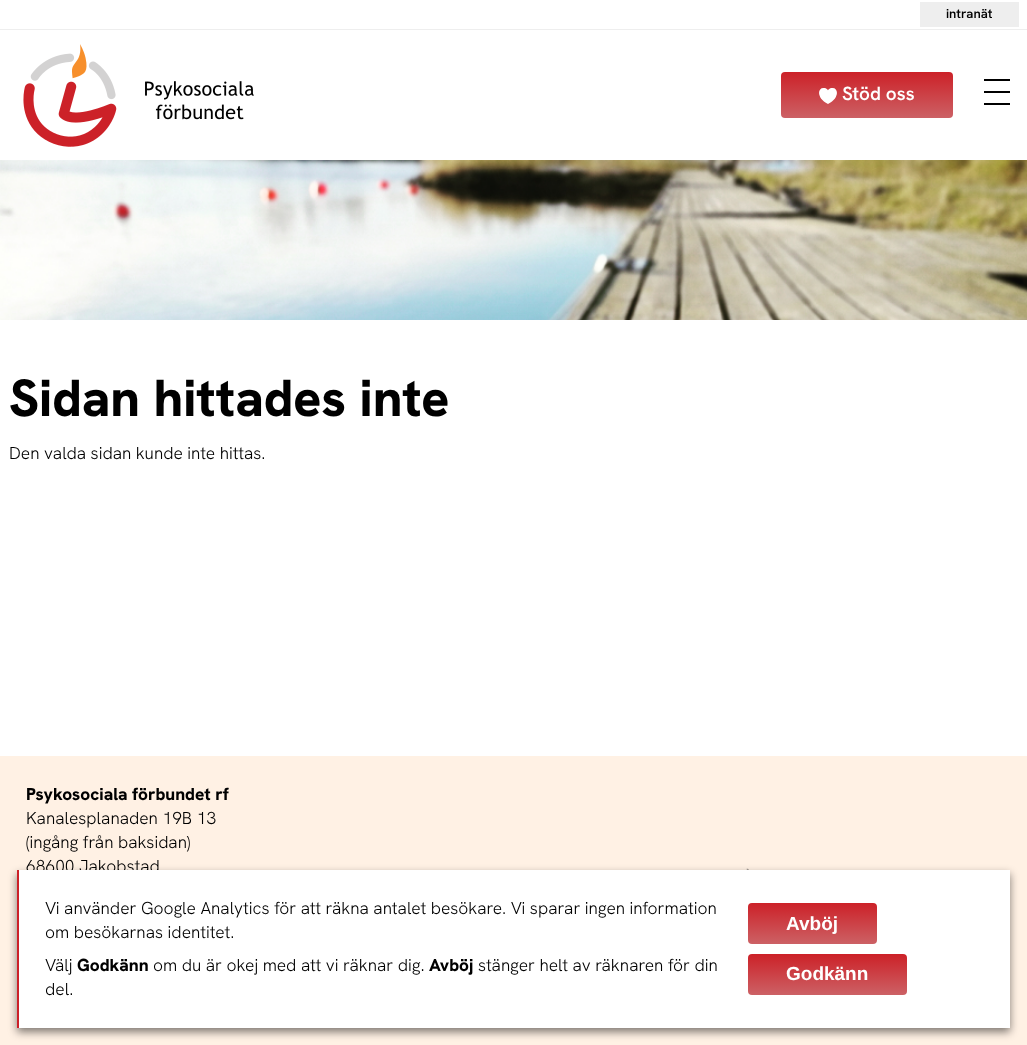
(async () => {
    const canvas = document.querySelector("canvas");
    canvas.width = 1027;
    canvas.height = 1045;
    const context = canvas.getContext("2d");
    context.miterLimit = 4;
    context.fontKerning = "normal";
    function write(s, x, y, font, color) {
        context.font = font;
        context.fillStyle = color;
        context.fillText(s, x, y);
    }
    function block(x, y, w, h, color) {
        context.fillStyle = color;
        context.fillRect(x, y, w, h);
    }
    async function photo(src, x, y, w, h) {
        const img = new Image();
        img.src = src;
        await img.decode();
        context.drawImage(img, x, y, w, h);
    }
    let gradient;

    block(0, 0, 1027, 1045, "rgb(255, 255, 255)");
    block(0, 29, 1027, 1, "rgb(238, 238, 238)");
    block(920, 2, 99, 25, "rgb(238, 238, 238)");
    write("intranät", 946, 18, "600 13px Hanken Grotesk", "rgb(0, 0, 0)");
    await photo("media/1.png", 23, 44, 231, 103);
    gradient = context.createLinearGradient(867, 72, 867, 118);
    gradient.addColorStop(0, "rgb(204, 33, 40)");
    gradient.addColorStop(1, "rgb(204, 97, 101)");
    context.fillStyle = gradient;
    context.beginPath();
    context.roundRect(781, 72, 172, 46, 4);
    context.fill();
    await photo("media/2.png", 819, 88, 18, 16);
    write("Stöd oss", 842, 100, "600 19px Hanken Grotesk", "rgb(255, 255, 255)");
    block(984, 79, 26, 2, "rgb(0, 0, 0)");
    block(984, 91, 26, 2, "rgb(0, 0, 0)");
    block(984, 103, 26, 2, "rgb(0, 0, 0)");
    await photo("media/3.png", 0, 160, 1027, 160);
    write("Sidan hittades inte", 9, 416, "800 52px Hanken Grotesk", "rgb(0, 0, 0)");
    write("Den valda sidan kunde inte hittas.", 9, 459, "300 17.35px Hanken Grotesk", "rgb(0, 0, 0)");
    block(0, 756, 1027, 289, "rgb(255, 241, 228)");
    await photo("media/4.png", 746, 868, 3, 2);
    context.fillStyle = "rgba(0, 0, 0, 0.5)";
    context.filter = "blur(4px)";
    context.beginPath();
    context.rect(17, 874, 993, 158);
    context.fill();
    context.filter = "none";
    write("68600 Jakobstad", 26, 872, "300 17.35px Hanken Grotesk", "rgb(0, 0, 0)");
    block(19, 870, 991, 158, "rgb(255, 255, 255)");
    block(17, 870, 2, 158, "rgb(204, 33, 40)");
    write("Vi använder Google Analytics för att räkna antalet besökare. Vi sparar ingen information", 45, 914, "300 17.35px Hanken Grotesk", "rgb(0, 0, 0)");
    write("om besökarnas identitet.", 45, 938, "300 17.35px Hanken Grotesk", "rgb(0, 0, 0)");
    write("Välj", 45, 971, "300 17.35px Hanken Grotesk", "rgb(0, 0, 0)");
    write("Godkänn", 77, 971, "800 17.35px Hanken Grotesk", "rgb(0, 0, 0)");
    write("om du är okej med att vi räknar dig.", 153, 971, "300 17.35px Hanken Grotesk", "rgb(0, 0, 0)");
    write("Avböj", 429, 971, "800 17.35px Hanken Grotesk", "rgb(0, 0, 0)");
    write("stänger helt av räknaren för din", 478, 971, "300 17.35px Hanken Grotesk", "rgb(0, 0, 0)");
    write("del.", 45, 995, "300 17.35px Hanken Grotesk", "rgb(0, 0, 0)");
    gradient = context.createLinearGradient(813, 903, 813, 944);
    gradient.addColorStop(0, "rgb(204, 33, 40)");
    gradient.addColorStop(1, "rgb(204, 97, 101)");
    context.fillStyle = gradient;
    context.beginPath();
    context.roundRect(748, 903, 129, 41, 4);
    context.fill();
    write("Avböj", 786, 930, "bold 19px Liberation Sans", "rgb(255, 255, 255)");
    gradient = context.createLinearGradient(828, 954, 828, 995);
    gradient.addColorStop(0, "rgb(204, 33, 40)");
    gradient.addColorStop(1, "rgb(204, 97, 101)");
    context.fillStyle = gradient;
    context.beginPath();
    context.roundRect(748, 954, 159, 41, 4);
    context.fill();
    write("Godkänn", 786, 980, "bold 19px Liberation Sans", "rgb(255, 255, 255)");
    write("Psykosociala förbundet rf", 26, 800, "800 17.35px Hanken Grotesk", "rgb(0, 0, 0)");
    write("Kanalesplanaden 19B 13", 26, 824, "300 17.35px Hanken Grotesk", "rgb(0, 0, 0)");
    write("(ingång från baksidan)", 26, 848, "300 17.35px Hanken Grotesk", "rgb(0, 0, 0)");
})();
